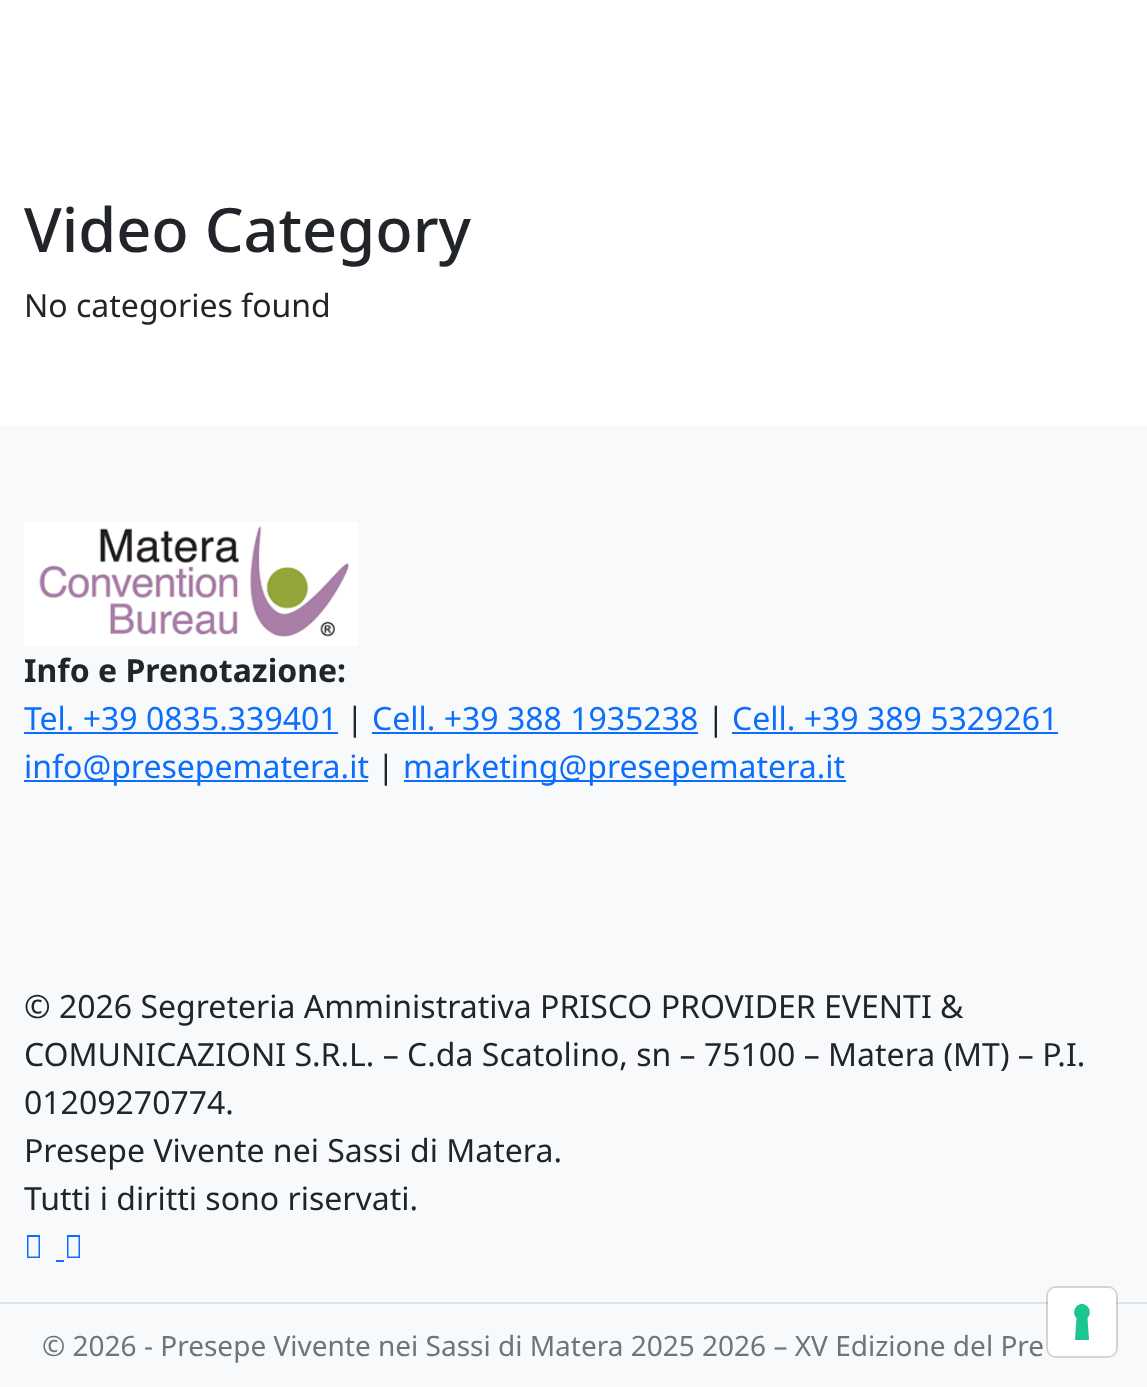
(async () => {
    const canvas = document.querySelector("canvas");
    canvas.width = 1147;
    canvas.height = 1387;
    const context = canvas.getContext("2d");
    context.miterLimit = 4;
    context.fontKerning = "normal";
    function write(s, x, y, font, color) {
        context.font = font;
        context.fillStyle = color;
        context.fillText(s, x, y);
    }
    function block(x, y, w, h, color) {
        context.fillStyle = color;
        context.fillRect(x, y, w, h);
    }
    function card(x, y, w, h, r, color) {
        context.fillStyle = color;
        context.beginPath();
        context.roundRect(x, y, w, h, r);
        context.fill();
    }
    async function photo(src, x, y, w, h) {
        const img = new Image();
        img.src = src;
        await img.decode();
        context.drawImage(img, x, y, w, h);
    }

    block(0, 0, 1147, 1387, "rgb(255, 255, 255)");
    write("Video Category", 24, 252, "500 61.25px Noto Sans", "rgb(33, 37, 41)");
    write("No categories found", 24, 317, "32px Noto Sans", "rgb(33, 37, 41)");
    block(0, 426, 1147, 876, "rgb(248, 249, 250)");
    await photo("media/1.png", 24, 522, 334, 124);
    write("Info e Prenotazione:", 24, 682, "bold 32px Noto Sans", "rgb(33, 37, 41)");
    write("Tel. +39 0835.339401", 24, 730, "32px Noto Sans", "rgb(13, 110, 253)");
    block(24, 732, 314, 2, "rgb(13, 110, 253)");
    write("|", 346, 730, "32px Noto Sans", "rgb(33, 37, 41)");
    write("Cell. +39 388 1935238", 372, 730, "32px Noto Sans", "rgb(13, 110, 253)");
    block(372, 732, 326, 2, "rgb(13, 110, 253)");
    write("|", 707, 730, "32px Noto Sans", "rgb(33, 37, 41)");
    write("Cell. +39 389 5329261", 732, 730, "32px Noto Sans", "rgb(13, 110, 253)");
    block(732, 732, 326, 2, "rgb(13, 110, 253)");
    block(24, 780, 344, 2, "rgb(13, 110, 253)");
    write("info@presepematera.it", 24, 778, "32px Noto Sans", "rgb(13, 110, 253)");
    write("|", 377, 778, "32px Noto Sans", "rgb(33, 37, 41)");
    block(404, 780, 442, 2, "rgb(13, 110, 253)");
    write("marketing@presepematera.it", 403, 778, "32px Noto Sans", "rgb(13, 110, 253)");
    write("© 2026 Segreteria Amministrativa PRISCO PROVIDER EVENTI &", 24, 1018, "32px Noto Sans", "rgb(33, 37, 41)");
    write("COMUNICAZIONI S.R.L. – C.da Scatolino, sn – 75100 – Matera (MT) – P.I.", 24, 1066, "32px Noto Sans", "rgb(33, 37, 41)");
    write("01209270774.", 24, 1114, "32px Noto Sans", "rgb(33, 37, 41)");
    write("Presepe Vivente nei Sassi di Matera.", 24, 1162, "32px Noto Sans", "rgb(33, 37, 41)");
    write("Tutti i diritti sono riservati.", 24, 1210, "32px Noto Sans", "rgb(33, 37, 41)");
    context.fillStyle = "rgb(13, 110, 253)";
    context.beginPath();
    context.moveTo(27, 1258);
    context.lineTo(27, 1235);
    context.lineTo(40, 1235);
    context.lineTo(40, 1258);
    context.closePath();
    context.moveTo(28.5, 1256.5);
    context.lineTo(38.5, 1256.5);
    context.lineTo(38.5, 1237);
    context.lineTo(28.5, 1237);
    context.closePath();
    context.fill();
    block(56, 1260, 8, 2, "rgb(13, 110, 253)");
    context.beginPath();
    context.moveTo(67, 1258);
    context.lineTo(67, 1235);
    context.lineTo(80, 1235);
    context.lineTo(80, 1258);
    context.closePath();
    context.moveTo(68.5, 1256.5);
    context.lineTo(78.5, 1256.5);
    context.lineTo(78.5, 1237);
    context.lineTo(68.5, 1237);
    context.closePath();
    context.fill();
    block(0, 1304, 1147, 83, "rgb(248, 249, 250)");
    block(0, 1302, 1147, 2, "rgb(222, 226, 230)");
    write("© 2026 - Presepe Vivente nei Sassi di Matera 2025 2026 – XV Edizione del Pre", 42, 1356, "28px Noto Sans", "rgb(108, 117, 125)");
    context.beginPath();
    context.roundRect(1047, 1287, 70, 70, 9);
    context.strokeStyle = "rgba(0, 0, 0, 0.15)";
    context.lineWidth = 2;
    context.stroke();
    card(1048, 1288, 68, 68, 8, "rgb(255, 255, 255)");
    context.fillStyle = "rgb(28, 198, 145)";
    context.beginPath();
    context.moveTo(1082, 1304);
    context.bezierCurveTo(1089, 1304, 1092.5, 1313.5, 1087.5, 1318);
    context.lineTo(1089, 1340);
    context.lineTo(1075, 1340);
    context.lineTo(1076.5, 1318);
    context.bezierCurveTo(1071.5, 1313.5, 1075, 1304, 1082, 1304);
    context.closePath();
    context.fill("evenodd");
})();
